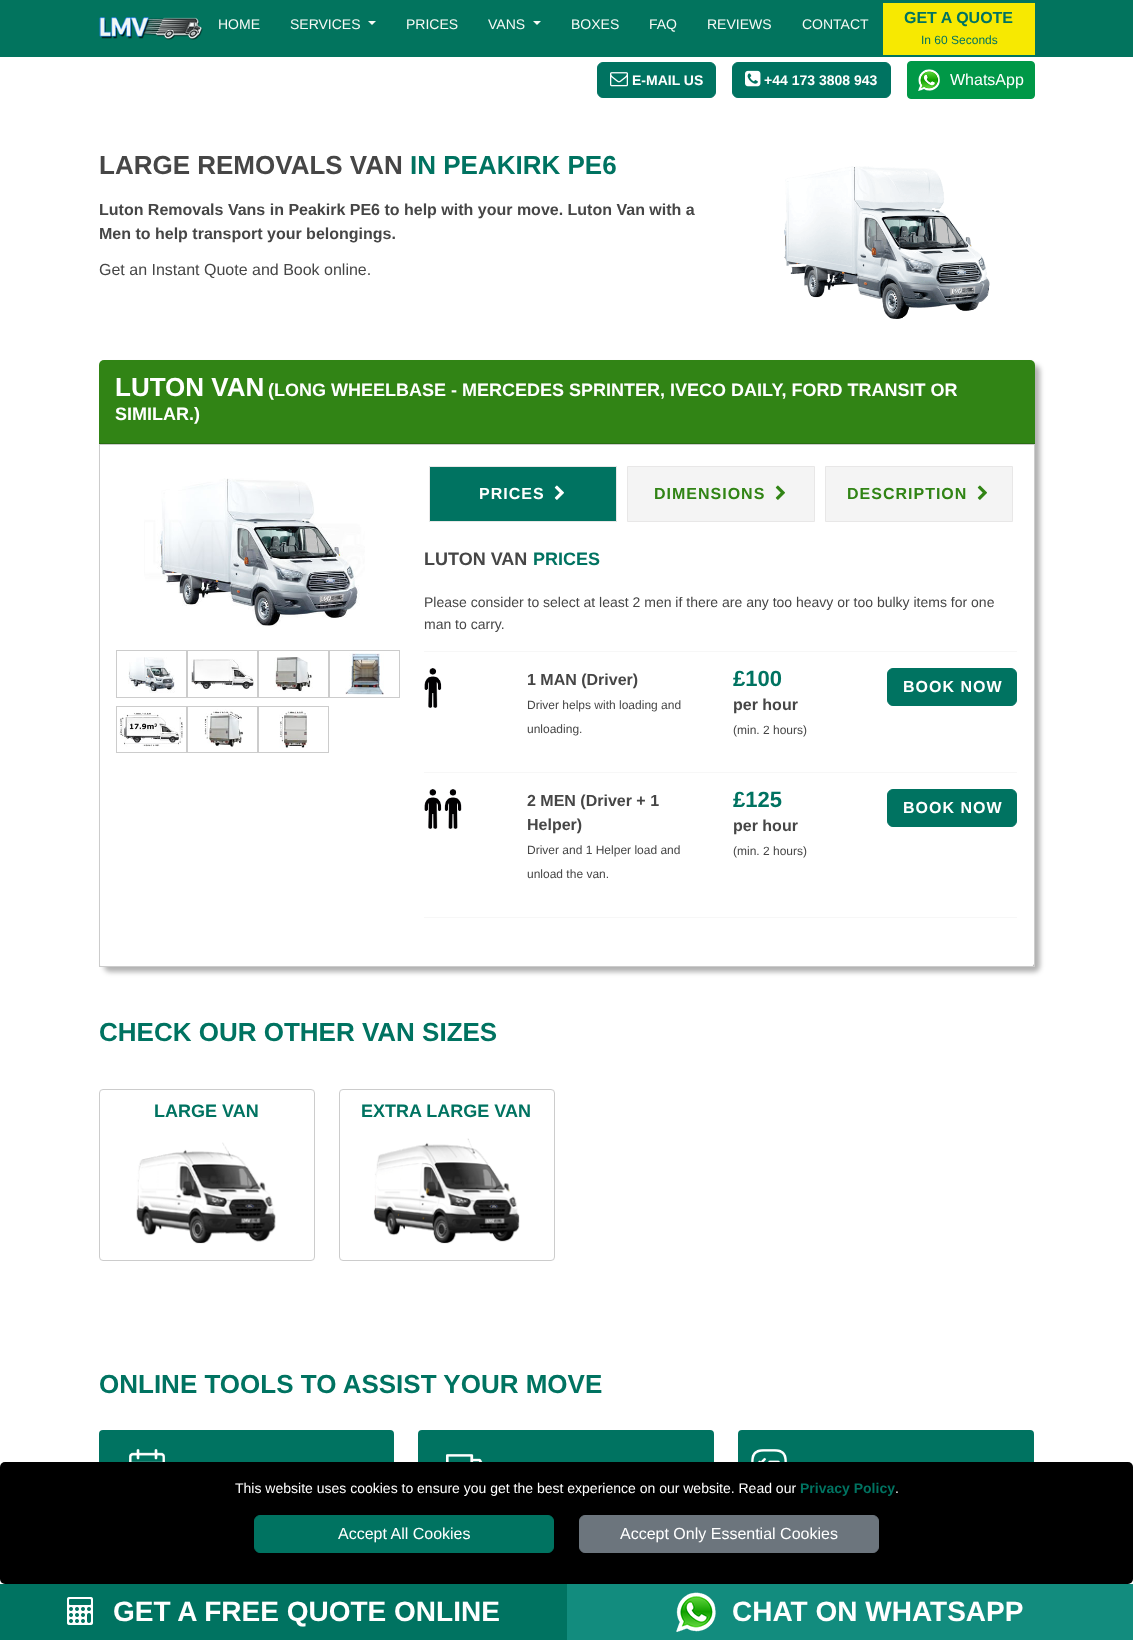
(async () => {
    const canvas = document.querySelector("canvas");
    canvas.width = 1133;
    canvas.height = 1640;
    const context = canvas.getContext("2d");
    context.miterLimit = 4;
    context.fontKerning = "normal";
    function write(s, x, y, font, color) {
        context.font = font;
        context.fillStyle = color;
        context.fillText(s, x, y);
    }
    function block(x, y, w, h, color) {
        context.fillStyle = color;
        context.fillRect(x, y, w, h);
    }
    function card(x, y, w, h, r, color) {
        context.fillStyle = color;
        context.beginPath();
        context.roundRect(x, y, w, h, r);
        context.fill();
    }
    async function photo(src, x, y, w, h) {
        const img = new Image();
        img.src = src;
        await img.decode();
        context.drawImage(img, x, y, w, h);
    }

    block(0, 0, 1133, 1640, "rgb(255, 255, 255)");
    block(0, 0, 1133, 57, "rgb(2, 116, 94)");
    await photo("media/1.png", 99, 17, 104, 23);
    write("HOME", 218, 29, "14px Liberation Sans", "rgb(247, 250, 246)");
    write("SERVICES", 290, 29, "14px Liberation Sans", "rgb(247, 250, 246)");
    context.beginPath();
    context.moveTo(368, 21);
    context.lineTo(376, 21);
    context.lineTo(372, 25);
    context.closePath();
    context.fill();
    write("PRICES", 406, 29, "14px Liberation Sans", "rgb(247, 250, 246)");
    write("VANS", 488, 29, "14px Liberation Sans", "rgb(247, 250, 246)");
    context.beginPath();
    context.moveTo(533, 21);
    context.lineTo(541, 21);
    context.lineTo(537, 25);
    context.closePath();
    context.fill();
    write("BOXES", 571, 29, "14px Liberation Sans", "rgb(247, 250, 246)");
    write("FAQ", 649, 29, "14px Liberation Sans", "rgb(247, 250, 246)");
    write("REVIEWS", 707, 29, "14px Liberation Sans", "rgb(247, 250, 246)");
    write("CONTACT", 802, 29, "14px Liberation Sans", "rgb(247, 250, 246)");
    block(883, 3, 152, 52, "rgb(247, 233, 1)");
    write("GET A QUOTE", 904, 23, "bold 16px Liberation Sans", "rgb(0, 115, 97)");
    write("In 60 Seconds", 921, 44, "12px Liberation Sans", "rgb(0, 115, 97)");
    context.beginPath();
    context.roundRect(597.5, 62.5, 118, 35, 5.5);
    context.fill();
    context.strokeStyle = "rgb(0, 115, 97)";
    context.stroke();
    await photo("media/2.png", 610, 72, 18, 15);
    write("E-MAIL US", 632, 85, "bold 14px Liberation Sans", "rgb(255, 255, 255)");
    context.fillStyle = "rgb(0, 115, 97)";
    context.beginPath();
    context.roundRect(732.5, 62.5, 158, 35, 5.5);
    context.fill();
    context.stroke();
    await photo("media/3.png", 745, 70, 16, 17);
    write("+44 173 3808 943", 764, 85, "bold 14px Liberation Sans", "rgb(255, 255, 255)");
    context.fillStyle = "rgb(0, 152, 71)";
    context.beginPath();
    context.roundRect(907.5, 61.5, 127, 37, 3.5);
    context.fill();
    context.strokeStyle = "rgb(0, 152, 71)";
    context.stroke();
    await photo("media/4.png", 918, 69, 22, 22);
    write("WhatsApp", 950, 85, "16px Liberation Sans", "rgb(255, 255, 255)");
    write("LARGE REMOVALS VAN", 99, 174, "bold 26px Liberation Sans", "rgb(70, 70, 70)");
    write("IN PEAKIRK PE6", 410, 174, "bold 26px Liberation Sans", "rgb(0, 115, 97)");
    write("Luton Removals Vans in Peakirk PE6 to help with your move. Luton Van with a", 99, 215, "bold 16px Liberation Sans", "rgb(70, 70, 70)");
    write("Men to help transport your belongings.", 99, 239, "bold 16px Liberation Sans", "rgb(70, 70, 70)");
    write("Get an Instant Quote and Book online.", 99, 275, "16px Liberation Sans", "rgb(70, 70, 70)");
    await photo("media/5.png", 784, 166, 206, 153);
    context.fillStyle = "rgba(0, 0, 0, 0.3)";
    context.filter = "blur(2.5px)";
    context.beginPath();
    context.roundRect(104, 365, 936, 607, 6);
    context.fill();
    context.filter = "none";
    card(99, 360, 936, 607, 6, "rgb(255, 255, 255)");
    context.fillStyle = "rgb(49, 132, 21)";
    context.beginPath();
    context.roundRect(99, 360, 936, 84, [5, 5, 0, 0]);
    context.fill();
    block(99, 443, 936, 1, "rgb(40, 109, 17)");
    write("LUTON VAN", 115, 396, "bold 26px Liberation Sans", "rgb(255, 255, 255)");
    write("(LONG WHEELBASE - MERCEDES SPRINTER, IVECO DAILY, FORD TRANSIT OR", 268, 396, "bold 18px Liberation Sans", "rgb(255, 255, 255)");
    write("SIMILAR.)", 115, 420, "bold 18px Liberation Sans", "rgb(255, 255, 255)");
    context.strokeStyle = "rgb(204, 204, 204)";
    context.strokeRect(99.5, 444.5, 935, 522);
    await photo("media/6.png", 144, 478, 221, 149);
    context.strokeRect(116.5, 650.5, 70, 47);
    await photo("media/7.png", 128, 657, 47, 36);
    context.strokeRect(187.5, 650.5, 70, 47);
    await photo("media/8.png", 191, 659, 63, 30);
    context.strokeRect(258.5, 650.5, 70, 47);
    await photo("media/9.png", 274, 657, 39, 35);
    context.strokeRect(329.5, 650.5, 70, 47);
    await photo("media/10.png", 345, 653, 39, 42);
    context.strokeRect(116.5, 706.5, 70, 46);
    await photo("media/11.png", 119, 712, 64, 35);
    context.strokeRect(187.5, 706.5, 70, 46);
    await photo("media/12.png", 204, 709, 39, 38);
    context.strokeRect(258.5, 706.5, 70, 46);
    await photo("media/13.png", 279, 710, 29, 38);
    context.fillStyle = "rgb(0, 115, 97)";
    context.beginPath();
    context.rect(429.5, 466.5, 187, 55);
    context.fill();
    context.strokeStyle = "rgb(232, 231, 231)";
    context.stroke();
    context.letterSpacing = "1px";
    write("PRICES", 479, 499, "bold 16px Liberation Sans", "rgb(255, 255, 255)");
    await photo("media/14.png", 554, 485, 10, 15);
    context.fillStyle = "rgb(244, 244, 244)";
    context.beginPath();
    context.rect(627.5, 466.5, 187, 55);
    context.fill();
    context.stroke();
    write("DIMENSIONS", 654, 499, "bold 16px Liberation Sans", "rgb(49, 132, 21)");
    await photo("media/15.png", 775, 485, 10, 15);
    context.fillStyle = "rgb(244, 244, 244)";
    context.beginPath();
    context.rect(825.5, 466.5, 187, 55);
    context.fill();
    context.stroke();
    write("DESCRIPTION", 847, 499, "bold 16px Liberation Sans", "rgb(49, 132, 21)");
    await photo("media/15.png", 977, 485, 10, 15);
    context.letterSpacing = "0px";
    write("LUTON VAN", 424, 565, "bold 18px Liberation Sans", "rgb(70, 70, 70)");
    write("PRICES", 533, 565, "bold 18px Liberation Sans", "rgb(0, 115, 97)");
    write("Please consider to select at least 2 men if there are any too heavy or too bulky items for one", 424, 607, "14px Liberation Sans", "rgb(70, 70, 70)");
    write("man to carry.", 424, 629, "14px Liberation Sans", "rgb(70, 70, 70)");
    block(424, 651, 593, 1, "rgb(247, 247, 247)");
    await photo("media/16.png", 424, 668, 18, 40);
    write("1 MAN (Driver)", 527, 685, "bold 16px Liberation Sans", "rgb(70, 70, 70)");
    write("Driver helps with loading and", 527, 709, "12px Liberation Sans", "rgb(70, 70, 70)");
    write("unloading.", 527, 733, "12px Liberation Sans", "rgb(70, 70, 70)");
    write("£100", 733, 686, "bold 22px Liberation Sans", "rgb(0, 115, 97)");
    write("per hour", 733, 710, "bold 16px Liberation Sans", "rgb(70, 70, 70)");
    write("(min. 2 hours)", 733, 734, "12px Liberation Sans", "rgb(70, 70, 70)");
    context.fillStyle = "rgb(0, 115, 97)";
    context.beginPath();
    context.roundRect(887.5, 668.5, 129, 37, 5.5);
    context.fill();
    context.strokeStyle = "rgb(0, 115, 97)";
    context.stroke();
    context.letterSpacing = "1px";
    write("BOOK NOW", 903, 692, "bold 16px Liberation Sans", "rgb(255, 255, 255)");
    block(424, 772, 593, 1, "rgb(247, 247, 247)");
    await photo("media/17.png", 424, 789, 38, 40);
    context.letterSpacing = "0px";
    write("2 MEN (Driver + 1", 527, 806, "bold 16px Liberation Sans", "rgb(70, 70, 70)");
    write("Helper)", 527, 830, "bold 16px Liberation Sans", "rgb(70, 70, 70)");
    write("Driver and 1 Helper load and", 527, 854, "12px Liberation Sans", "rgb(70, 70, 70)");
    write("unload the van.", 527, 878, "12px Liberation Sans", "rgb(70, 70, 70)");
    write("£125", 733, 807, "bold 22px Liberation Sans", "rgb(0, 115, 97)");
    write("per hour", 733, 831, "bold 16px Liberation Sans", "rgb(70, 70, 70)");
    write("(min. 2 hours)", 733, 855, "12px Liberation Sans", "rgb(70, 70, 70)");
    context.fillStyle = "rgb(0, 115, 97)";
    context.beginPath();
    context.roundRect(887.5, 789.5, 129, 37, 5.5);
    context.fill();
    context.stroke();
    context.letterSpacing = "1px";
    write("BOOK NOW", 903, 813, "bold 16px Liberation Sans", "rgb(255, 255, 255)");
    block(424, 917, 593, 1, "rgb(247, 247, 247)");
    context.letterSpacing = "0px";
    write("CHECK OUR OTHER VAN SIZES", 99, 1041, "bold 26px Liberation Sans", "rgb(0, 115, 97)");
    context.beginPath();
    context.roundRect(99.5, 1089.5, 215, 171, 3.5);
    context.strokeStyle = "rgb(204, 204, 204)";
    context.stroke();
    write("LARGE VAN", 154, 1117, "bold 18px Liberation Sans", "rgb(0, 115, 97)");
    await photo("media/18.png", 136, 1142, 140, 102);
    context.beginPath();
    context.roundRect(339.5, 1089.5, 215, 171, 3.5);
    context.stroke();
    write("EXTRA LARGE VAN", 361, 1117, "bold 18px Liberation Sans", "rgb(0, 115, 97)");
    await photo("media/19.png", 373, 1138, 147, 106);
    write("ONLINE TOOLS TO ASSIST YOUR MOVE", 99, 1393, "bold 26px Liberation Sans", "rgb(0, 115, 97)");
    context.beginPath();
    context.roundRect(100.5, 1431.5, 292, 119, 2.5);
    context.fill();
    context.strokeStyle = "rgb(0, 115, 97)";
    context.lineWidth = 3;
    context.stroke();
    await photo("media/20.png", 129, 1449, 36, 13);
    context.beginPath();
    context.roundRect(419.5, 1431.5, 293, 119, 2.5);
    context.fill();
    context.stroke();
    await photo("media/21.png", 446, 1454, 37, 8);
    context.beginPath();
    context.roundRect(739.5, 1431.5, 293, 119, 2.5);
    context.fill();
    context.stroke();
    await photo("media/22.png", 751, 1449, 36, 13);
    card(0, 1462, 1133, 122, 5, "rgb(0, 0, 0)");
    write("This website uses cookies to ensure you get the best experience on our website. Read our", 235, 1493, "14px Liberation Sans", "rgb(255, 255, 255)");
    write("Privacy Policy", 800, 1493, "bold 14px Liberation Sans", "rgb(0, 115, 97)");
    write(".", 895, 1493, "14px Liberation Sans", "rgb(255, 255, 255)");
    context.fillStyle = "rgb(0, 115, 97)";
    context.beginPath();
    context.roundRect(254.5, 1515.5, 299, 37, 5.5);
    context.fill();
    context.lineWidth = 1;
    context.stroke();
    write("Accept All Cookies", 338, 1539, "16px Liberation Sans", "rgb(255, 255, 255)");
    context.fillStyle = "rgb(108, 117, 125)";
    context.beginPath();
    context.roundRect(579.5, 1515.5, 299, 37, 5.5);
    context.fill();
    context.strokeStyle = "rgb(108, 117, 125)";
    context.stroke();
    write("Accept Only Essential Cookies", 620, 1539, "16px Liberation Sans", "rgb(255, 255, 255)");
    block(0, 1584, 567, 56, "rgb(0, 115, 97)");
    await photo("media/23.png", 67, 1597, 26, 28);
    write("GET A FREE QUOTE ONLINE", 113, 1621, "bold 28px Liberation Sans", "rgb(255, 255, 255)");
    block(567, 1584, 566, 56, "rgb(18, 140, 126)");
    await photo("media/24.png", 676, 1592, 40, 40);
    write("CHAT ON WHATSAPP", 732, 1621, "bold 28px Liberation Sans", "rgb(255, 255, 255)");
})();
